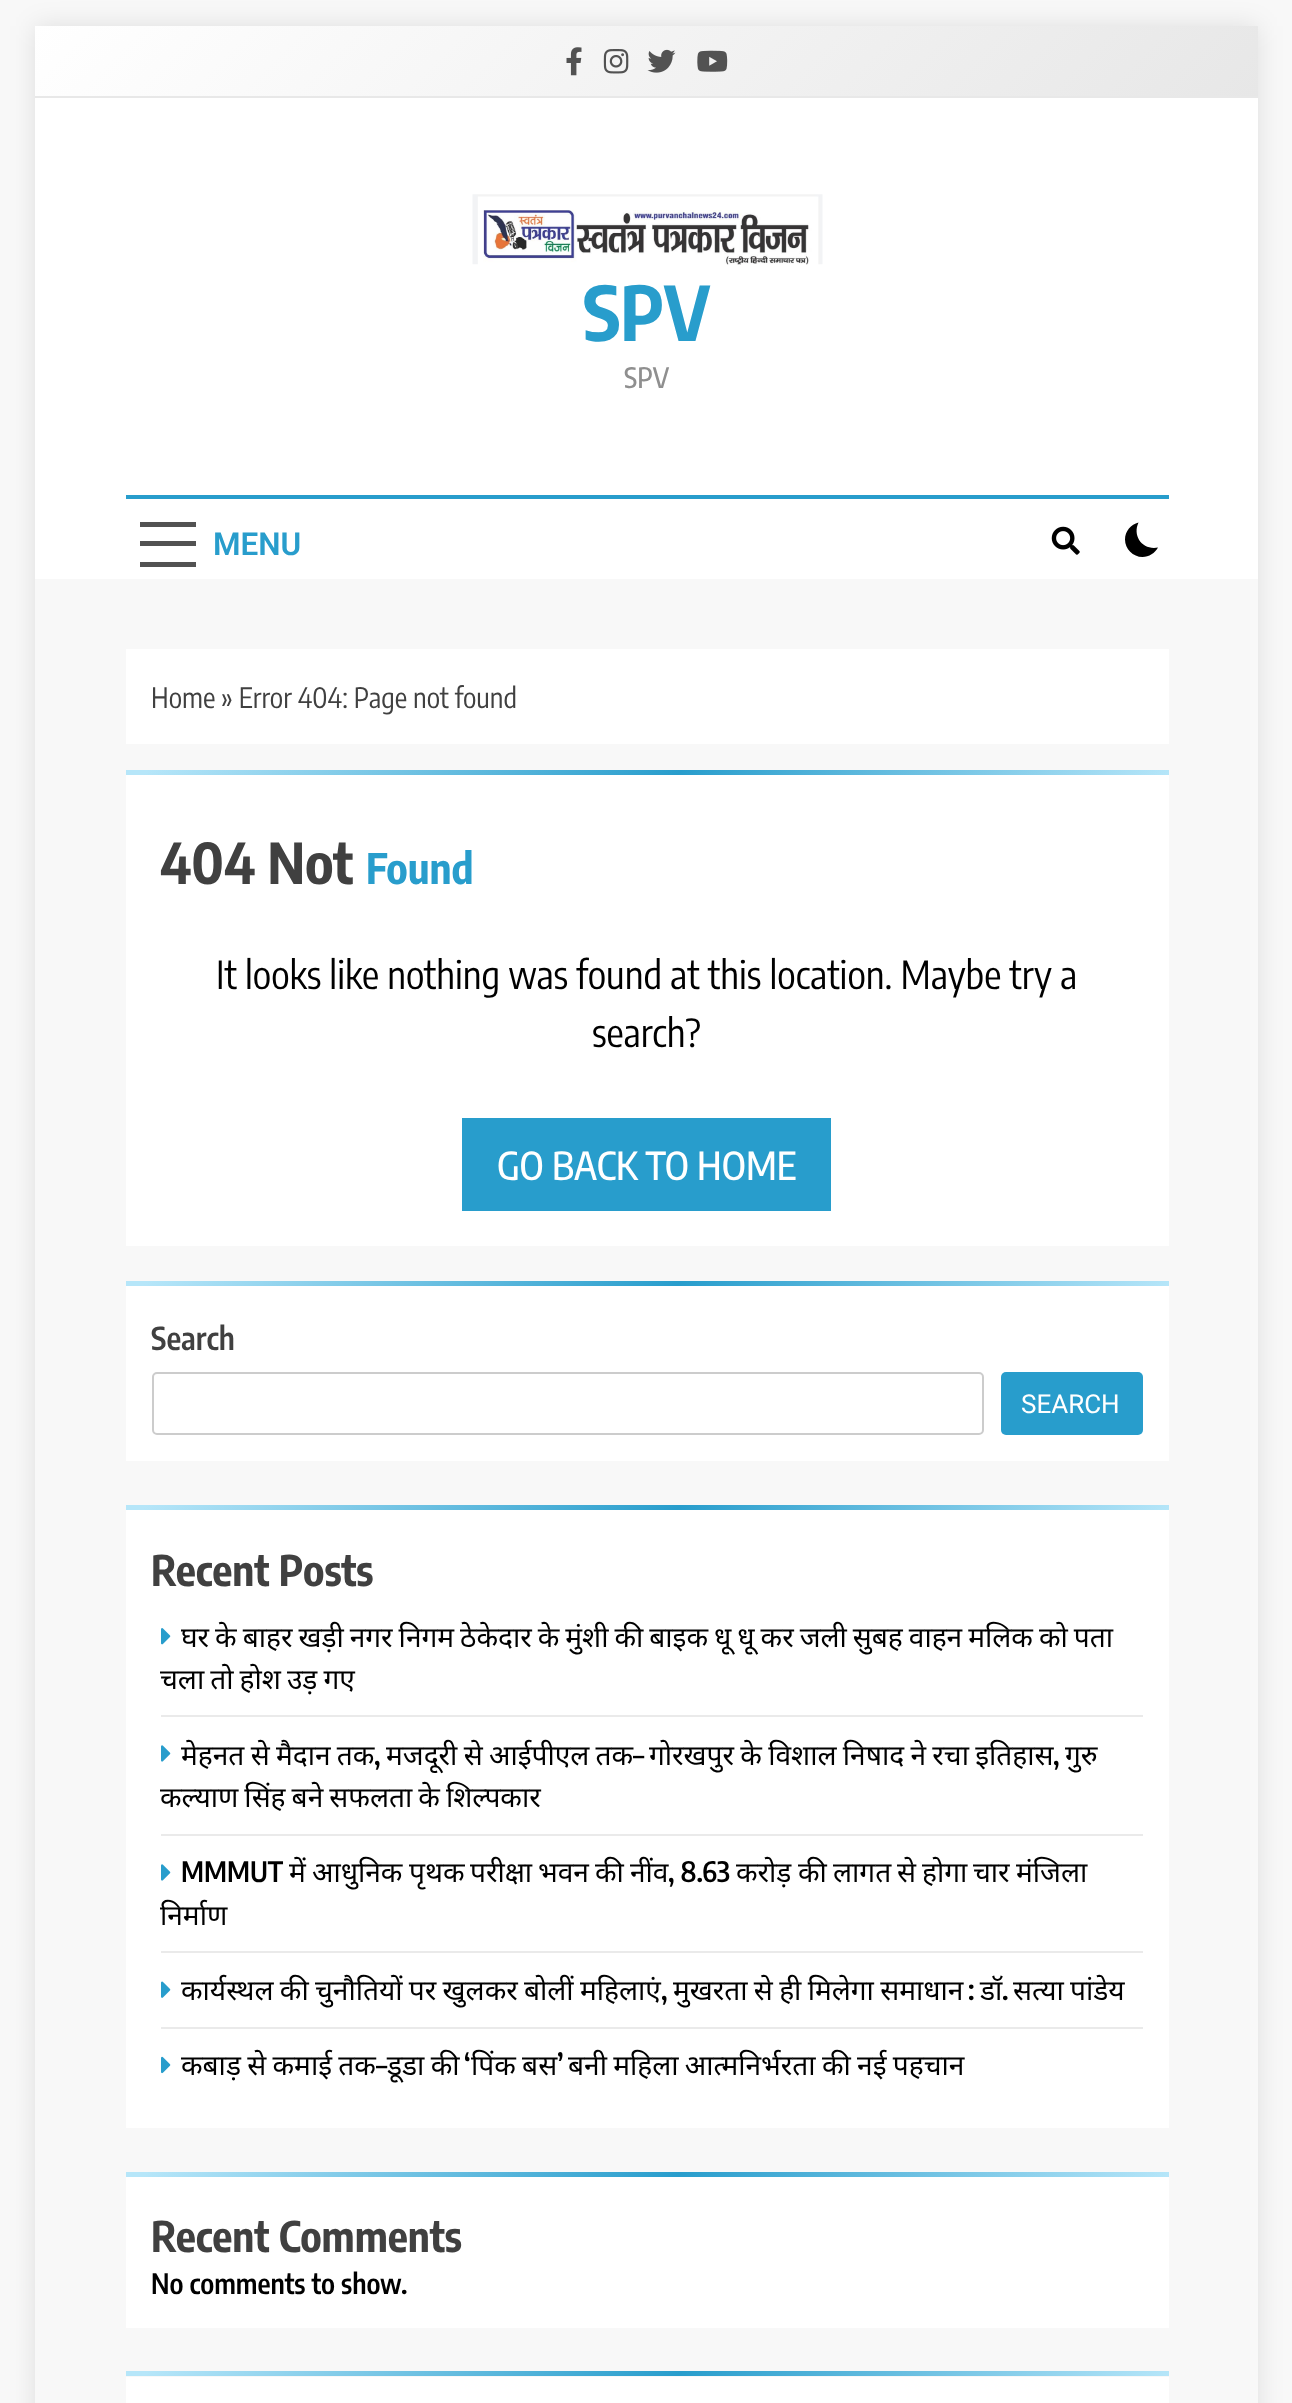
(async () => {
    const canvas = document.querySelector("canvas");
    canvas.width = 1292;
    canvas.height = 2403;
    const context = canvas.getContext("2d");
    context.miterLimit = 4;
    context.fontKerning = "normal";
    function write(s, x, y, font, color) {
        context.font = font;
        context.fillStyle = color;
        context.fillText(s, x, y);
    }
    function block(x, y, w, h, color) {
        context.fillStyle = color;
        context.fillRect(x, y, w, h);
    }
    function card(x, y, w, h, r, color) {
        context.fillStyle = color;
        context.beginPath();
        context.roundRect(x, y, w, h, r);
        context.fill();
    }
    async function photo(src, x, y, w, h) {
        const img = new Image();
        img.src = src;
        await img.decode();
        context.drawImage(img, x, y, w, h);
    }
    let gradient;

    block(0, 0, 1292, 2403, "rgb(248, 248, 248)");
    context.save();
    context.beginPath();
    context.moveTo(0, 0);
    context.lineTo(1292, 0);
    context.lineTo(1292, 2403);
    context.lineTo(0, 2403);
    context.closePath();
    context.moveTo(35, 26);
    context.lineTo(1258, 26);
    context.lineTo(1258, 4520);
    context.lineTo(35, 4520);
    context.closePath();
    context.clip("evenodd");
    context.fillStyle = "rgba(0, 0, 0, 0.1)";
    context.filter = "blur(13px)";
    context.beginPath();
    context.rect(35, 26, 1223, 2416);
    context.fill();
    context.filter = "none";
    context.restore();
    gradient = context.createLinearGradient(323, -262, 970, 385);
    gradient.addColorStop(0, "rgb(255, 255, 255)");
    gradient.addColorStop(1, "rgb(231, 231, 231)");
    context.fillStyle = gradient;
    context.fillRect(35, 26, 1223, 70);
    block(35, 96, 1223, 2, "rgb(232, 232, 232)");
    await photo("media/1.png", 566, 47, 16, 29);
    await photo("media/2.png", 603, 49, 26, 25);
    await photo("media/3.png", 647, 49, 29, 24);
    await photo("media/4.png", 697, 50, 31, 22);
    block(35, 98, 1223, 481, "rgb(255, 255, 255)");
    await photo("media/5.png", 472, 194, 351, 71);
    write("SPV", 583, 341, "bold 75px Encode Sans Condensed", "rgb(40, 157, 204)");
    write("SPV", 624, 388, "500 28px Encode Sans Condensed", "rgb(143, 143, 143)");
    block(126, 495, 1043, 4, "rgb(40, 157, 204)");
    block(140, 522, 56, 5, "rgb(82, 82, 82)");
    block(140, 541, 56, 5, "rgb(82, 82, 82)");
    block(140, 562, 56, 5, "rgb(82, 82, 82)");
    write("MENU", 213, 555, "600 31.5px Roboto", "rgb(40, 157, 204)");
    await photo("media/6.png", 1051, 526, 29, 29);
    context.fillStyle = "rgb(0, 0, 0)";
    context.beginPath();
    context.moveTo(1158, 547.5);
    context.bezierCurveTo(1143, 550.5, 1132, 536.5, 1138.5, 522.5);
    context.bezierCurveTo(1131, 524.5, 1125, 531, 1125, 539.5);
    context.bezierCurveTo(1125, 549, 1133, 557, 1142.5, 557);
    context.bezierCurveTo(1149, 557, 1155, 553, 1158, 547.5);
    context.closePath();
    context.fill();
    block(126, 649, 1043, 95, "rgb(255, 255, 255)");
    write("Home » Error 404: Page not found", 151, 708, "28px Encode Sans Condensed", "rgb(64, 64, 64)");
    block(126, 775, 1043, 471, "rgb(255, 255, 255)");
    gradient = context.createLinearGradient(385, 511, 910, 1035);
    gradient.addColorStop(0.02, "rgb(182, 230, 249)");
    gradient.addColorStop(0.53, "rgb(40, 157, 204)");
    gradient.addColorStop(1, "rgb(182, 230, 249)");
    context.fillStyle = gradient;
    context.fillRect(126, 770, 1043, 5);
    write("404 Not", 160, 884, "bold 56px Encode Sans Condensed", "rgb(64, 64, 64)");
    write("Found", 366, 884, "bold 42px Encode Sans Condensed", "rgb(40, 157, 204)");
    write("It looks like nothing was found at this location. Maybe try a", 216, 989, "38.5px Encode Sans Condensed", "rgb(0, 0, 0)");
    write("search?", 592, 1047, "38.5px Encode Sans Condensed", "rgb(0, 0, 0)");
    block(462, 1118, 369, 93, "rgb(40, 157, 204)");
    write("GO BACK TO HOME", 497, 1180, "500 38.5px Encode Sans Condensed", "rgb(255, 255, 255)");
    block(126, 1286, 1043, 175, "rgb(255, 255, 255)");
    gradient = context.createLinearGradient(385, 1022, 910, 1546);
    gradient.addColorStop(0.02, "rgb(182, 230, 249)");
    gradient.addColorStop(0.53, "rgb(40, 157, 204)");
    gradient.addColorStop(1, "rgb(182, 230, 249)");
    context.fillStyle = gradient;
    context.fillRect(126, 1281, 1043, 5);
    write("Search", 151, 1350, "600 31.5px Encode Sans Condensed", "rgb(64, 64, 64)");
    context.beginPath();
    context.roundRect(153, 1373, 830, 61, 4);
    context.strokeStyle = "rgb(204, 204, 204)";
    context.lineWidth = 2;
    context.stroke();
    card(1001, 1372, 142, 63, 5, "rgb(40, 157, 204)");
    write("SEARCH", 1021, 1413, "26px Roboto", "rgb(255, 255, 255)");
    block(126, 1510, 1043, 618, "rgb(255, 255, 255)");
    gradient = context.createLinearGradient(385, 1246, 910, 1770);
    gradient.addColorStop(0.02, "rgb(182, 230, 249)");
    gradient.addColorStop(0.53, "rgb(40, 157, 204)");
    gradient.addColorStop(1, "rgb(182, 230, 249)");
    context.fillStyle = gradient;
    context.fillRect(126, 1505, 1043, 5);
    write("Recent Posts", 151, 1586, "bold 42px Encode Sans Condensed", "rgb(64, 64, 64)");
    block(161, 1715, 982, 2, "rgb(234, 234, 234)");
    await photo("media/7.png", 161, 1628, 10, 17);
    context.wordSpacing = "-1.3px";
    write("घर के बाहर खड़ी नगर निगम ठेकेदार के मुंशी की बाइक धू धू कर जली सुबह वाहन मलिक को पता", 181, 1647, "28.1px Noto Sans", "rgb(0, 0, 0)");
    context.wordSpacing = "-1.25px";
    write("चला तो होश उड़ गए", 160, 1689, "28.1px Noto Sans", "rgb(0, 0, 0)");
    block(161, 1834, 982, 2, "rgb(234, 234, 234)");
    await photo("media/8.png", 161, 1745, 10, 17);
    context.wordSpacing = "-1px";
    write("मेहनत से मैदान तक", 181, 1765, "28.1px Noto Sans", "rgb(0, 0, 0)");
    write("मजदूरी से आईपीएल तक", 386, 1765, "28.1px Noto Sans", "rgb(0, 0, 0)");
    context.wordSpacing = "0px";
    write("–", 633, 1765, "600 28.1px Encode Sans Condensed", "rgb(0, 0, 0)");
    context.wordSpacing = "-1px";
    write("गोरखपुर के विशाल निषाद ने रचा इतिहास", 649, 1765, "28.1px Noto Sans", "rgb(0, 0, 0)");
    context.wordSpacing = "0px";
    write(",", 1053, 1765, "600 28.1px Encode Sans Condensed", "rgb(0, 0, 0)");
    write("गुरु", 1065, 1765, "28.1px Noto Sans", "rgb(0, 0, 0)");
    write(",", 374, 1765, "600 28.1px Encode Sans Condensed", "rgb(0, 0, 0)");
    context.wordSpacing = "-1.25px";
    write("कल्याण सिंह बने सफलता के शिल्पकार", 160, 1807, "28.1px Noto Sans", "rgb(0, 0, 0)");
    block(161, 1951, 982, 2, "rgb(234, 234, 234)");
    await photo("media/8.png", 161, 1864, 10, 17);
    context.wordSpacing = "0px";
    write("MMMUT", 181, 1882, "600 28.1px Encode Sans Condensed", "rgb(0, 0, 0)");
    write("में", 289, 1882, "28.1px Noto Sans", "rgb(0, 0, 0)");
    write("आधुनिक", 312, 1882, "28.1px Noto Sans", "rgb(0, 0, 0)");
    write("पृथक", 409, 1882, "28.1px Noto Sans", "rgb(0, 0, 0)");
    write("परीक्षा", 470, 1882, "28.1px Noto Sans", "rgb(0, 0, 0)");
    write("भवन", 538, 1882, "28.1px Noto Sans", "rgb(0, 0, 0)");
    write("की", 595, 1882, "28.1px Noto Sans", "rgb(0, 0, 0)");
    write("नींव", 630, 1882, "28.1px Noto Sans", "rgb(0, 0, 0)");
    write(", 8.63", 668, 1882, "600 28.1px Encode Sans Condensed", "rgb(0, 0, 0)");
    write("करोड़", 736, 1882, "28.1px Noto Sans", "rgb(0, 0, 0)");
    write("की", 798, 1882, "28.1px Noto Sans", "rgb(0, 0, 0)");
    write("लागत", 833, 1882, "28.1px Noto Sans", "rgb(0, 0, 0)");
    write("से", 897, 1882, "28.1px Noto Sans", "rgb(0, 0, 0)");
    write("होगा", 922, 1882, "28.1px Noto Sans", "rgb(0, 0, 0)");
    write("चार", 973, 1882, "28.1px Noto Sans", "rgb(0, 0, 0)");
    write("मंजिला", 1016, 1882, "28.1px Noto Sans", "rgb(0, 0, 0)");
    write("निर्माण", 160, 1925, "28.1px Noto Sans", "rgb(0, 0, 0)");
    block(161, 2027, 982, 2, "rgb(234, 234, 234)");
    await photo("media/9.png", 161, 1981, 10, 17);
    context.wordSpacing = "-1px";
    write("कार्यस्थल की चुनौतियों पर खुलकर बोलीं महिलाएं", 181, 2000, "28.1px Noto Sans", "rgb(0, 0, 0)");
    context.wordSpacing = "0px";
    write(",", 661, 2000, "600 28.1px Encode Sans Condensed", "rgb(0, 0, 0)");
    context.wordSpacing = "-1px";
    write("मुखरता से ही मिलेगा समाधान", 673, 2000, "28.1px Noto Sans", "rgb(0, 0, 0)");
    context.wordSpacing = "0px";
    write(":", 968, 2000, "600 28.1px Encode Sans Condensed", "rgb(0, 0, 0)");
    write("डॉ", 980, 2000, "28.1px Noto Sans", "rgb(0, 0, 0)");
    context.wordSpacing = "-1px";
    write("सत्या पांडेय", 1013, 2000, "28.1px Noto Sans", "rgb(0, 0, 0)");
    context.wordSpacing = "0px";
    write(".", 1002, 2000, "600 28.1px Encode Sans Condensed", "rgb(0, 0, 0)");
    await photo("media/10.png", 161, 2056, 10, 18);
    context.wordSpacing = "-1px";
    write("कबाड़ से कमाई तक", 181, 2075, "28.1px Noto Sans", "rgb(0, 0, 0)");
    context.wordSpacing = "0px";
    write("–", 376, 2075, "600 28.1px Encode Sans Condensed", "rgb(0, 0, 0)");
    context.wordSpacing = "-1px";
    write("डूडा की", 387, 2075, "28.1px Noto Sans", "rgb(0, 0, 0)");
    context.wordSpacing = "0px";
    write("‘", 464, 2075, "600 28.1px Encode Sans Condensed", "rgb(0, 0, 0)");
    context.wordSpacing = "-1px";
    write("पिंक बस", 471, 2075, "28.1px Noto Sans", "rgb(0, 0, 0)");
    context.wordSpacing = "0px";
    write("’", 557, 2075, "600 28.1px Encode Sans Condensed", "rgb(0, 0, 0)");
    context.wordSpacing = "-1px";
    write("बनी महिला आत्मनिर्भरता की नई पहचान", 568, 2075, "28.1px Noto Sans", "rgb(0, 0, 0)");
    block(126, 2177, 1043, 151, "rgb(255, 255, 255)");
    gradient = context.createLinearGradient(385, 1912, 910, 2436);
    gradient.addColorStop(0.02, "rgb(182, 230, 249)");
    gradient.addColorStop(0.53, "rgb(40, 157, 204)");
    gradient.addColorStop(1, "rgb(182, 230, 249)");
    context.fillStyle = gradient;
    context.fillRect(126, 2172, 1043, 5);
    context.wordSpacing = "0px";
    write("Recent Comments", 151, 2252, "bold 42px Encode Sans Condensed", "rgb(64, 64, 64)");
    write("No comments to show.", 151, 2294, "600 28px Encode Sans Condensed", "rgb(0, 0, 0)");
    block(126, 2377, 1043, 26, "rgb(255, 255, 255)");
    gradient = context.createLinearGradient(385, 2112, 910, 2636);
    gradient.addColorStop(0.02, "rgb(182, 230, 249)");
    gradient.addColorStop(0.53, "rgb(40, 157, 204)");
    gradient.addColorStop(1, "rgb(182, 230, 249)");
    context.fillStyle = gradient;
    context.fillRect(126, 2371, 1043, 5);
})();
